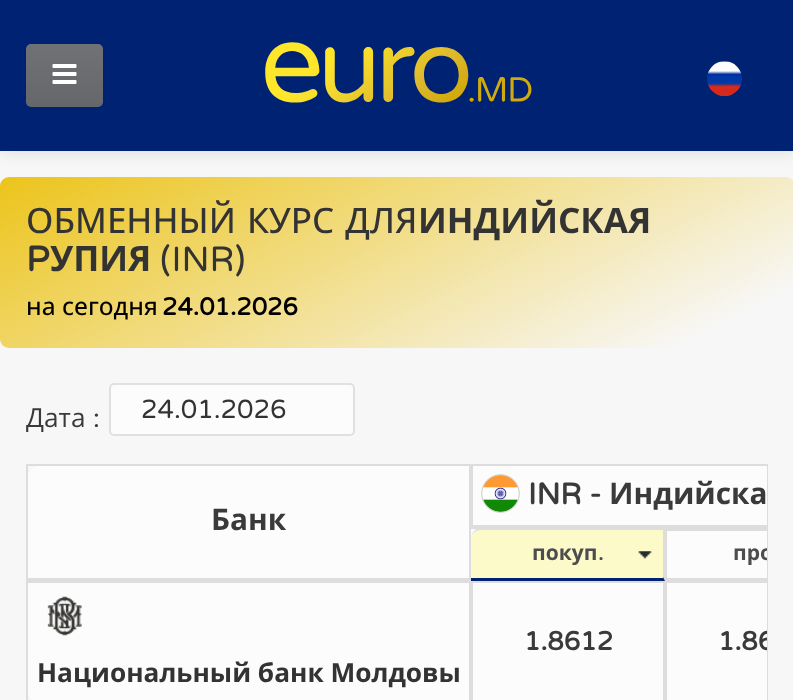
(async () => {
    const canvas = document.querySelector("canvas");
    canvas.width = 793;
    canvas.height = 700;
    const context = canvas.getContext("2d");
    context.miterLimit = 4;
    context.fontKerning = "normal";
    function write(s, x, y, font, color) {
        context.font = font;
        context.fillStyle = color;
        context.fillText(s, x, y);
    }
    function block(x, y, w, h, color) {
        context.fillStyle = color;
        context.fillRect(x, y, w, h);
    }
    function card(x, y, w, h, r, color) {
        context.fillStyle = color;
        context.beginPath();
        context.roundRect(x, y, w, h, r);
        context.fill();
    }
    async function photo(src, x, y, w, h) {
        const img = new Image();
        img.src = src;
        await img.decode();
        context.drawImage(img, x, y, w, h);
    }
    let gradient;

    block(0, 0, 793, 700, "rgb(247, 247, 247)");
    gradient = context.createLinearGradient(514, 491, 281, 34);
    gradient.addColorStop(0.1, "rgb(247, 247, 247)");
    gradient.addColorStop(1, "rgb(236, 196, 27)");
    context.fillStyle = gradient;
    context.beginPath();
    context.roundRect(0, 177, 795, 171, 9);
    context.fill();
    context.fillStyle = "rgba(0, 0, 0, 0.12)";
    context.filter = "blur(9px)";
    context.beginPath();
    context.rect(0, 0, 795, 151);
    context.fill();
    context.filter = "none";
    block(0, 0, 793, 151, "rgb(0, 34, 114)");
    card(26, 44, 77, 63, 5, "rgb(102, 103, 107)");
    gradient = context.createLinearGradient(65, 44, 65, 107);
    gradient.addColorStop(0, "rgba(255, 255, 255, 0.07)");
    gradient.addColorStop(1, "rgba(255, 255, 255, 0)");
    context.fillStyle = gradient;
    context.beginPath();
    context.roundRect(26, 44, 77, 63, 5);
    context.fill();
    await photo("media/1.png", 52, 64, 25, 20);
    await photo("media/2.png", 265, 42, 267, 61);
    await photo("media/3.png", 707, 61, 35, 36);
    context.wordSpacing = "2px";
    write("ОБМЕННЫЙ КУРС ДЛЯ", 26, 233, "500 35px Open Sans", "rgb(51, 51, 51)");
    context.wordSpacing = "0px";
    write("ИНДИЙСКАЯ", 418, 233, "bold 35px Open Sans", "rgb(51, 51, 51)");
    write("P", 26, 271, "bold 35px Varela Round", "rgb(51, 51, 51)");
    write("УПИЯ", 50, 271, "bold 35px Open Sans", "rgb(51, 51, 51)");
    write("(INR)", 160, 271, "35px Varela Round", "rgb(51, 51, 51)");
    write("на", 26, 315, "500 24.5px Open Sans", "rgb(0, 0, 0)");
    write("сегодня", 62, 315, "500 24.5px Open Sans", "rgb(0, 0, 0)");
    write("24.01.2026", 162, 315, "bold 24.5px Varela Round", "rgb(0, 0, 0)");
    write("Дата", 26, 427, "26.25px Open Sans", "rgb(58, 58, 58)");
    write(":", 93, 427, "26.25px Varela Round", "rgb(58, 58, 58)");
    context.fillStyle = "rgb(252, 252, 252)";
    context.beginPath();
    context.roundRect(110, 384, 244, 51, 4);
    context.fill();
    context.strokeStyle = "rgb(224, 224, 224)";
    context.lineWidth = 2;
    context.stroke();
    write("24.01.2026", 141, 418, "26.25px Varela Round", "rgb(51, 51, 51)");
    context.strokeStyle = "rgb(221, 221, 221)";
    context.strokeRect(27, 465, 740, 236);
    context.fillStyle = "rgb(252, 252, 252)";
    context.beginPath();
    context.moveTo(39, 466);
    context.lineTo(767, 466);
    context.lineTo(767, 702);
    context.lineTo(39, 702);
    context.bezierCurveTo(33, 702, 28, 697, 28, 691);
    context.lineTo(28, 477);
    context.bezierCurveTo(28, 471, 33, 466, 39, 466);
    context.closePath();
    context.fill();
    block(471, 525, 296, 4, "rgb(221, 221, 221)");
    block(471, 466, 2, 63, "rgb(221, 221, 221)");
    await photo("media/4.png", 481, 474, 39, 39);
    write("INR -", 528, 504, "bold 29.75px Varela Round", "rgb(58, 58, 58)");
    write("Индийска", 609, 504, "bold 29.75px Open Sans", "rgb(58, 58, 58)");
    block(469, 466, 2, 115, "rgb(221, 221, 221)");
    block(28, 578, 443, 5, "rgb(221, 221, 221)");
    write("Банк", 211, 530, "bold 29.75px Open Sans", "rgb(58, 58, 58)");
    context.fillStyle = "rgb(252, 250, 201)";
    context.beginPath();
    context.roundRect(471, 529, 194, 52, [11, 0, 0, 0]);
    context.fill();
    await photo("media/5.png", 638, 551, 14, 8);
    context.fillStyle = "rgb(221, 221, 221)";
    context.beginPath();
    context.moveTo(481, 530);
    context.lineTo(663, 530);
    context.lineTo(665, 528);
    context.lineTo(478, 528);
    context.bezierCurveTo(474, 530, 471, 534, 471, 539);
    context.bezierCurveTo(471, 534, 475, 530, 481, 530);
    context.closePath();
    context.fill();
    context.beginPath();
    context.moveTo(665, 528);
    context.lineTo(665, 581);
    context.lineTo(663, 577);
    context.lineTo(663, 530);
    context.closePath();
    context.fill();
    context.fillStyle = "rgb(0, 34, 114)";
    context.beginPath();
    context.moveTo(665, 581);
    context.lineTo(663, 577);
    context.lineTo(663, 578);
    context.lineTo(471, 578);
    context.lineTo(471, 581);
    context.closePath();
    context.fill();
    write("покуп", 532, 560, "bold 21px Open Sans", "rgb(77, 77, 77)");
    write(".", 598, 560, "bold 21px Varela Round", "rgb(77, 77, 77)");
    block(665, 529, 102, 2, "rgb(221, 221, 221)");
    block(665, 578, 102, 3, "rgb(221, 221, 221)");
    block(665, 529, 2, 52, "rgb(221, 221, 221)");
    context.save();
    context.beginPath();
    context.rect(28, 466, 739, 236);
    context.clip();
    write("про", 733, 560, "bold 21px Open Sans", "rgb(77, 77, 77)");
    context.restore();
    block(471, 581, 296, 2, "rgb(221, 221, 221)");
    block(663, 581, 4, 119, "rgb(221, 221, 221)");
    block(471, 581, 2, 119, "rgb(221, 221, 221)");
    write("1.8612", 524, 650, "bold 26.25px Varela Round", "rgb(58, 58, 58)");
    context.save();
    context.beginPath();
    context.rect(28, 466, 739, 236);
    context.clip();
    write("1.86", 718, 650, "bold 26.25px Varela Round", "rgb(58, 58, 58)");
    context.restore();
    block(469, 581, 2, 119, "rgb(221, 221, 221)");
    await photo("media/6.png", 47, 596, 35, 40);
    write("Национальный банк Молдовы", 37, 682, "bold 26.25px Open Sans", "rgb(51, 51, 51)");
})();
